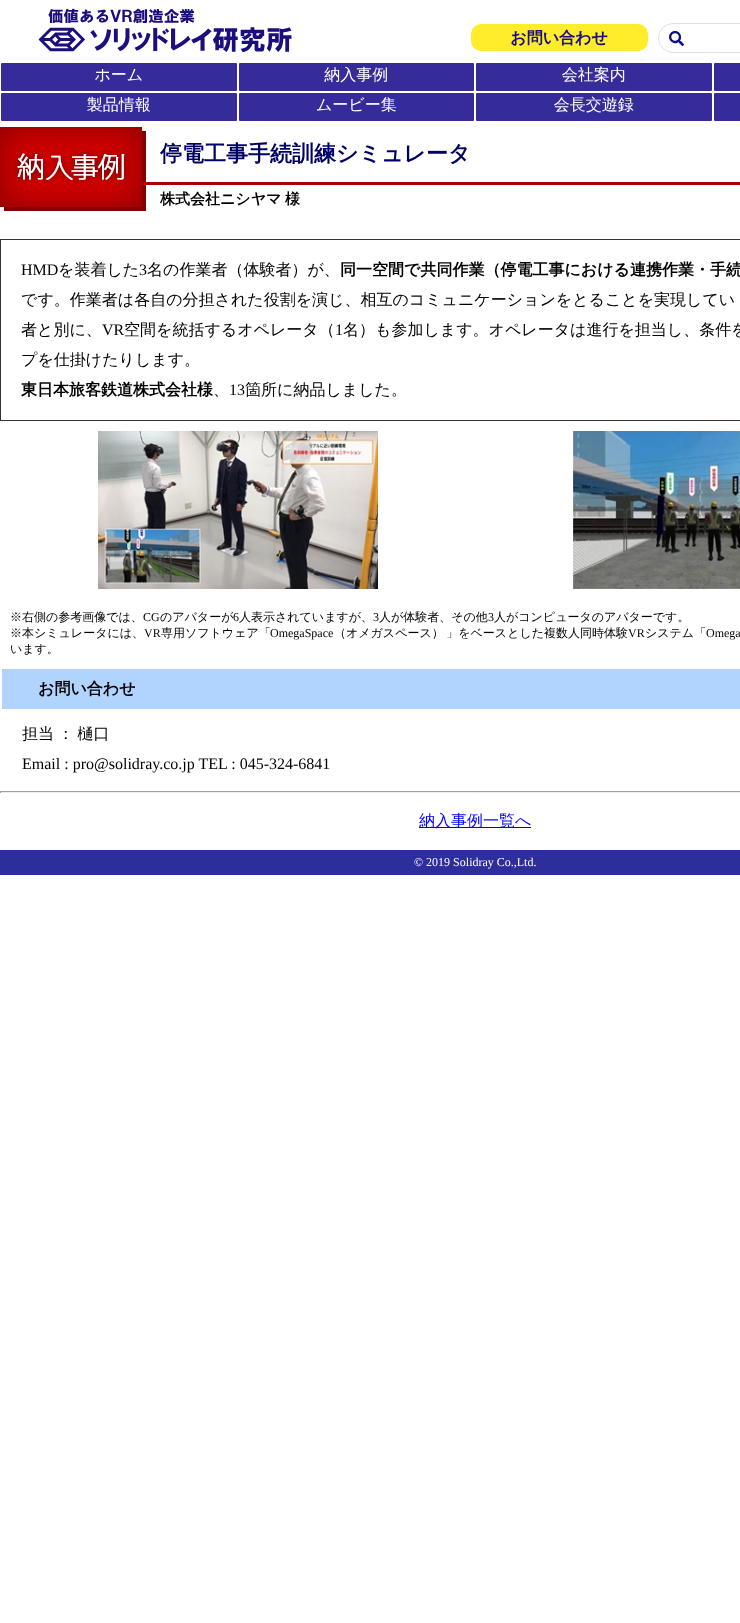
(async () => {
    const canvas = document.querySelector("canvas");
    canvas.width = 740;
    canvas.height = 1623;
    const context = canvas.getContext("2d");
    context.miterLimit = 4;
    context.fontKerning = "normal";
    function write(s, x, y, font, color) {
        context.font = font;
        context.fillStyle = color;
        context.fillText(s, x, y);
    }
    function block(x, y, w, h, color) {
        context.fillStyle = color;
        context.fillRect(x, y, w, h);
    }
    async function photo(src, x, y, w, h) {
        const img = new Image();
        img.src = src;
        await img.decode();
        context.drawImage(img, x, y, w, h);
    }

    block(0, 0, 740, 1623, "rgb(255, 255, 255)");
    await photo("media/1.png", 1, 8, 739, 113);
    await photo("media/2.png", 0, 127, 740, 84);
    write("停電工事手続訓練シミュレータ", 160, 161, "bold 22px WenQuanYi Zen Hei", "rgb(0, 0, 102)");
    context.wordSpacing = "-1px";
    write("株式会社ニシヤマ 様", 160, 204, "bold 15px WenQuanYi Zen Hei", "rgb(0, 0, 0)");
    context.strokeStyle = "rgb(51, 51, 51)";
    context.strokeRect(0.5, 239.5, 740, 181);
    context.wordSpacing = "0px";
    write("HMD", 21, 275, "16px Liberation Serif", "rgb(0, 0, 0)");
    write("を装着した", 58, 275, "500 16px WenQuanYi Zen Hei", "rgb(0, 0, 0)");
    write("3", 139, 275, "16px Liberation Serif", "rgb(0, 0, 0)");
    write("名の作業者（体験者）が、", 147, 275, "500 16px WenQuanYi Zen Hei", "rgb(0, 0, 0)");
    write("同一空間で共同作業（停電工事における連携作業・手続", 340, 275, "bold 16px WenQuanYi Zen Hei", "rgb(0, 0, 0)");
    context.wordSpacing = "-1px";
    write("です。作業者は各自の分担された役割を演じ、相互のコミュニケーションをとることを実現してい", 21, 305, "500 16px WenQuanYi Zen Hei", "rgb(0, 0, 0)");
    context.wordSpacing = "0px";
    write("者と別に、", 21, 335, "500 16px WenQuanYi Zen Hei", "rgb(0, 0, 0)");
    write("VR", 102, 335, "16px Liberation Serif", "rgb(0, 0, 0)");
    write("空間を統括するオペレータ（", 124, 335, "500 16px WenQuanYi Zen Hei", "rgb(0, 0, 0)");
    write("1", 335, 335, "16px Liberation Serif", "rgb(0, 0, 0)");
    write("名）も参加します。オペレータは進行を担当し、条件を", 343, 335, "500 16px WenQuanYi Zen Hei", "rgb(0, 0, 0)");
    write("プを仕掛けたりします。", 21, 365, "500 16px WenQuanYi Zen Hei", "rgb(0, 0, 0)");
    write("東日本旅客鉄道株式会社様", 21, 395, "bold 16px WenQuanYi Zen Hei", "rgb(0, 0, 0)");
    write("、", 213, 395, "500 16px WenQuanYi Zen Hei", "rgb(0, 0, 0)");
    write("13", 229, 395, "16px Liberation Serif", "rgb(0, 0, 0)");
    write("箇所に納品しました。", 245, 395, "500 16px WenQuanYi Zen Hei", "rgb(0, 0, 0)");
    await photo("media/3.png", 98, 431, 280, 158);
    await photo("media/4.png", 573, 431, 167, 158);
    write("※右側の参考画像では、", 10, 621, "500 12px WenQuanYi Zen Hei", "rgb(0, 0, 0)");
    write("CG", 143, 621, "12px Liberation Serif", "rgb(0, 0, 0)");
    write("のアバターが", 160, 621, "500 12px WenQuanYi Zen Hei", "rgb(0, 0, 0)");
    write("6", 233, 621, "12px Liberation Serif", "rgb(0, 0, 0)");
    write("人表示されていますが、", 239, 621, "500 12px WenQuanYi Zen Hei", "rgb(0, 0, 0)");
    write("3", 373, 621, "12px Liberation Serif", "rgb(0, 0, 0)");
    write("人が体験者、その他", 379, 621, "500 12px WenQuanYi Zen Hei", "rgb(0, 0, 0)");
    write("3", 488, 621, "12px Liberation Serif", "rgb(0, 0, 0)");
    write("人がコンピュータのアバターです。", 494, 621, "500 12px WenQuanYi Zen Hei", "rgb(0, 0, 0)");
    write("※本シミュレータには、", 10, 637, "500 12px WenQuanYi Zen Hei", "rgb(0, 0, 0)");
    write("VR", 144, 637, "12px Liberation Serif", "rgb(0, 0, 0)");
    write("専用ソフトウェア「", 161, 637, "500 12px WenQuanYi Zen Hei", "rgb(0, 0, 0)");
    write("OmegaSpace", 270, 637, "12px Liberation Serif", "rgb(0, 0, 0)");
    context.wordSpacing = "-1px";
    write("（オメガスペース） 」をベースとした複数人同時体験", 334, 637, "500 12px WenQuanYi Zen Hei", "rgb(0, 0, 0)");
    context.wordSpacing = "0px";
    write("VR", 628, 637, "12px Liberation Serif", "rgb(0, 0, 0)");
    write("システム「", 645, 637, "500 12px WenQuanYi Zen Hei", "rgb(0, 0, 0)");
    write("Omega", 706, 637, "12px Liberation Serif", "rgb(0, 0, 0)");
    write("います。", 10, 653, "500 12px WenQuanYi Zen Hei", "rgb(0, 0, 0)");
    block(2, 669, 738, 40, "rgb(177, 212, 255)");
    write("お問い合わせ", 38, 694, "bold 16px WenQuanYi Zen Hei", "rgb(0, 0, 0)");
    context.wordSpacing = "-1px";
    write("担当 ： 樋口", 22, 739, "500 16px WenQuanYi Zen Hei", "rgb(0, 0, 0)");
    context.wordSpacing = "0px";
    write("Email : pro@solidray.co.jp TEL : 045-324-6841", 22, 769, "16px Liberation Serif", "rgb(0, 0, 0)");
    block(0, 791, 740, 1, "rgb(159, 159, 159)");
    block(0, 792, 740, 1, "rgb(238, 238, 238)");
    block(0, 791, 1, 2, "rgb(159, 159, 159)");
    block(419, 827, 112, 1, "rgb(0, 0, 255)");
    write("納入事例一覧へ", 419, 826, "500 16px WenQuanYi Zen Hei", "rgb(0, 0, 255)");
    block(0, 850, 740, 25, "rgb(46, 45, 156)");
    write("© 2019 Solidray Co.,Ltd.", 414, 866, "12px Liberation Serif", "rgb(255, 255, 255)");
})();
